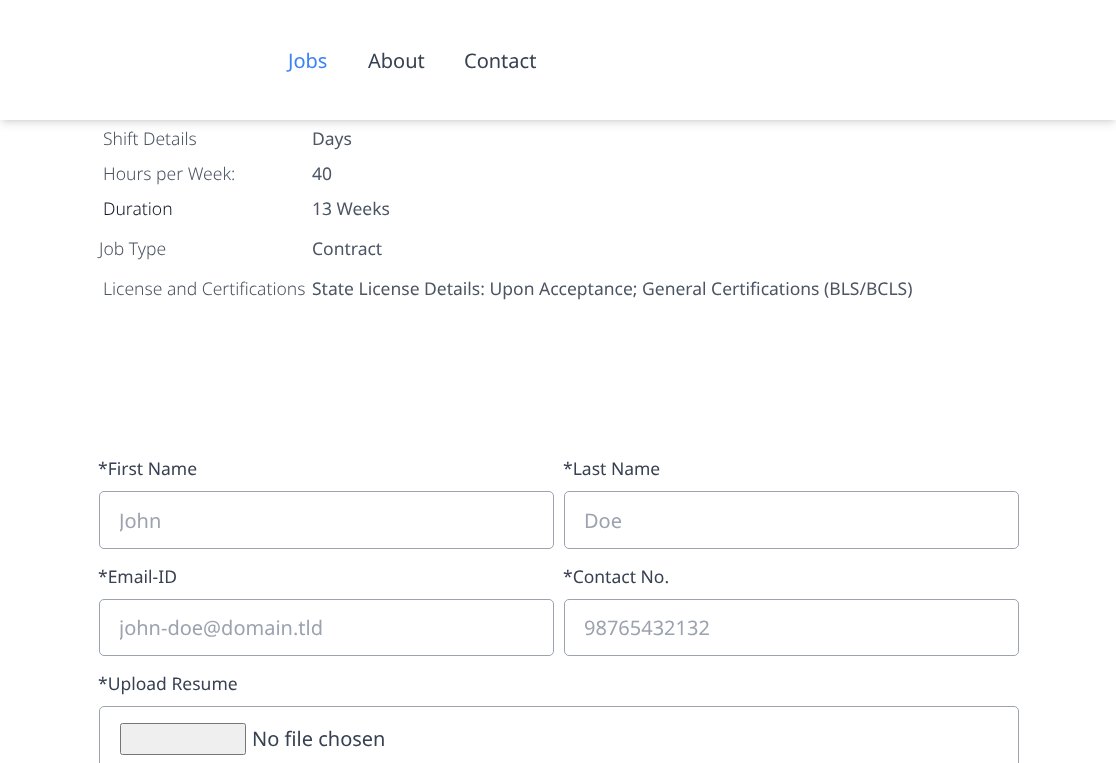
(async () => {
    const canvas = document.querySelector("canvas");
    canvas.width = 1116;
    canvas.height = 763;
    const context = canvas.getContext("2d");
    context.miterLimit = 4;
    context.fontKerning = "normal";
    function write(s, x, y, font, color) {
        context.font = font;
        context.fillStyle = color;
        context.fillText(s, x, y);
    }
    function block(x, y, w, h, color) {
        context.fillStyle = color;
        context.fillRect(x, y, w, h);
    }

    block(0, 0, 1116, 763, "rgb(255, 255, 255)");
    context.fillStyle = "rgba(0, 0, 0, 0.1)";
    context.filter = "blur(2.5px)";
    context.beginPath();
    context.rect(3, 5, 1111, 115);
    context.fill();
    context.filter = "none";
    context.filter = "blur(4px)";
    context.beginPath();
    context.rect(1, 6, 1114, 118);
    context.fill();
    context.filter = "none";
    block(0, 0, 1116, 120, "rgb(255, 255, 255)");
    write("Jobs", 288, 68, "20px Noto Sans", "rgb(59, 130, 246)");
    write("About", 368, 68, "20px Noto Sans", "rgb(55, 65, 81)");
    write("Contact", 464, 68, "20px Noto Sans", "rgb(55, 65, 81)");
    write("Shift Details", 103, 145, "300 17.5px Noto Sans", "rgb(75, 85, 99)");
    write("Days", 312, 145, "17.5px Noto Sans", "rgb(75, 85, 99)");
    write("Hours per Week:", 103, 180, "300 17.5px Noto Sans", "rgb(75, 85, 99)");
    write("40", 312, 180, "17.5px Noto Sans", "rgb(75, 85, 99)");
    write("Duration", 103, 215, "300 17.5px Noto Sans", "rgb(17, 24, 39)");
    write("13 Weeks", 312, 215, "17.5px Noto Sans", "rgb(75, 85, 99)");
    write("Job Type", 99, 255, "300 17.5px Noto Sans", "rgb(75, 85, 99)");
    write("Contract", 312, 255, "17.5px Noto Sans", "rgb(75, 85, 99)");
    write("License and Certifications", 103, 295, "300 17.5px Noto Sans", "rgb(75, 85, 99)");
    write("State License Details: Upon Acceptance; General Certifications (BLS/BCLS)", 312, 295, "17.5px Noto Sans", "rgb(75, 85, 99)");
    write("*First Name", 98, 475, "17.5px Noto Sans", "rgb(55, 65, 81)");
    context.beginPath();
    context.roundRect(99.5, 491.5, 454, 57, 4.5);
    context.strokeStyle = "rgb(156, 163, 175)";
    context.stroke();
    context.save();
    context.beginPath();
    context.rect(120, 506, 413, 28);
    context.clip();
    write("John", 119, 528, "20px Noto Sans", "rgb(156, 163, 175)");
    context.restore();
    write("*Last Name", 563, 475, "17.5px Noto Sans", "rgb(55, 65, 81)");
    context.beginPath();
    context.roundRect(564.5, 491.5, 454, 57, 4.5);
    context.stroke();
    write("Doe", 584, 528, "20px Noto Sans", "rgb(156, 163, 175)");
    write("*Email-ID", 98, 583, "17.5px Noto Sans", "rgb(55, 65, 81)");
    context.beginPath();
    context.roundRect(99.5, 599.5, 454, 56, 4.5);
    context.stroke();
    context.save();
    context.beginPath();
    context.rect(120, 614, 413, 27);
    context.clip();
    write("john-doe@domain.tld", 119, 635, "20px Noto Sans", "rgb(156, 163, 175)");
    context.restore();
    write("*Contact No.", 563, 583, "17.5px Noto Sans", "rgb(55, 65, 81)");
    context.beginPath();
    context.roundRect(564.5, 599.5, 454, 56, 4.5);
    context.stroke();
    write("98765432132", 584, 635, "20px Noto Sans", "rgb(156, 163, 175)");
    write("*Upload Resume", 98, 690, "17.5px Noto Sans", "rgb(55, 65, 81)");
    context.beginPath();
    context.roundRect(99.5, 706.5, 919, 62, 4.5);
    context.stroke();
    context.fillStyle = "rgb(239, 239, 239)";
    context.beginPath();
    context.roundRect(120.5, 723.5, 125, 31, 2);
    context.fill();
    context.strokeStyle = "rgb(118, 118, 118)";
    context.stroke();
    write("No file chosen", 252, 746, "20px Noto Sans", "rgb(55, 65, 81)");
})();
